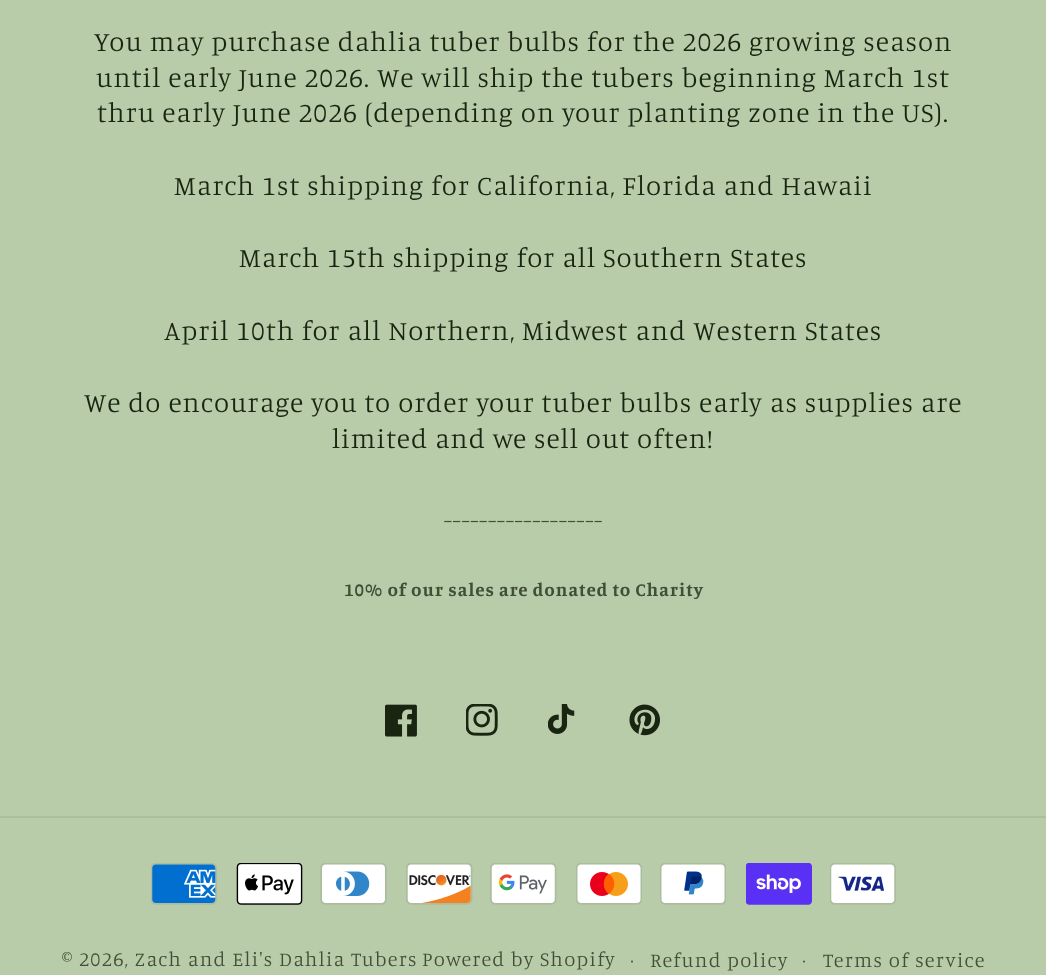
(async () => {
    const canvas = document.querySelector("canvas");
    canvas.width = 1046;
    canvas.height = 975;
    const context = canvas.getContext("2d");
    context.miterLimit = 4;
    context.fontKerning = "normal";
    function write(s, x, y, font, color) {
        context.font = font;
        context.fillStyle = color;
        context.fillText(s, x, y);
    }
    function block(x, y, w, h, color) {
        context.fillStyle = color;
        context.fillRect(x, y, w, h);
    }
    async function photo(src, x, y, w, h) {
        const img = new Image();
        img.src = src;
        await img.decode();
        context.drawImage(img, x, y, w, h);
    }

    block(0, 0, 1046, 975, "rgb(184, 204, 170)");
    context.letterSpacing = "1.1px";
    write("You may purchase dahlia tuber bulbs for the 2026 growing season", 94, 51, "300 27.55px Manuale", "rgb(26, 37, 17)");
    write("until early June 2026. We will ship the tubers beginning March 1st", 96, 87, "300 27.55px Manuale", "rgb(26, 37, 17)");
    write("thru early June 2026 (depending on your planting zone in the US).", 97, 122, "300 27.55px Manuale", "rgb(26, 37, 17)");
    write("March 1st shipping for California, Florida and Hawaii", 174, 195, "300 27.55px Manuale", "rgb(26, 37, 17)");
    write("March 15th shipping for all Southern States", 239, 267, "300 27.55px Manuale", "rgb(26, 37, 17)");
    write("April 10th for all Northern, Midwest and Western States", 164, 340, "300 27.55px Manuale", "rgb(26, 37, 17)");
    write("We do encourage you to order your tuber bulbs early as supplies are", 84, 412, "300 27.55px Manuale", "rgb(26, 37, 17)");
    write("limited and we sell out often!", 332, 448, "300 27.55px Manuale", "rgb(26, 37, 17)");
    write("------------------", 444, 528, "300 27.55px Manuale", "rgb(66, 79, 55)");
    write("10% of our sales are donated to Charity", 344, 596, "bold 18.5px Manuale", "rgb(66, 79, 55)");
    await photo("media/1.png", 385, 704, 32, 33);
    await photo("media/2.png", 466, 704, 32, 32);
    await photo("media/3.png", 548, 704, 27, 30);
    await photo("media/4.png", 629, 704, 31, 32);
    block(0, 816, 1046, 2, "rgb(171, 191, 158)");
    await photo("media/5.png", 151, 863, 66, 42);
    await photo("media/6.png", 236, 863, 67, 42);
    await photo("media/7.png", 320, 863, 67, 42);
    await photo("media/8.png", 406, 863, 67, 42);
    await photo("media/9.png", 490, 863, 67, 42);
    await photo("media/10.png", 576, 863, 66, 42);
    await photo("media/11.png", 660, 863, 66, 42);
    await photo("media/12.png", 746, 863, 66, 42);
    await photo("media/13.png", 830, 863, 66, 42);
    context.letterSpacing = "1.3px";
    write("© 2026, Zach and Eli's Dahlia Tubers", 62, 966, "300 20.25px Manuale", "rgb(66, 79, 55)");
    write("Powered by Shopify", 422, 966, "300 20.25px Manuale", "rgb(66, 79, 55)");
    write("·", 630, 966, "300 18px Manuale", "rgb(66, 79, 55)");
    write("Refund policy", 650, 967, "300 20.25px Manuale", "rgb(66, 79, 55)");
    write("·", 802, 966, "300 18px Manuale", "rgb(66, 79, 55)");
    write("Terms of service", 823, 967, "300 20.25px Manuale", "rgb(66, 79, 55)");
})();
